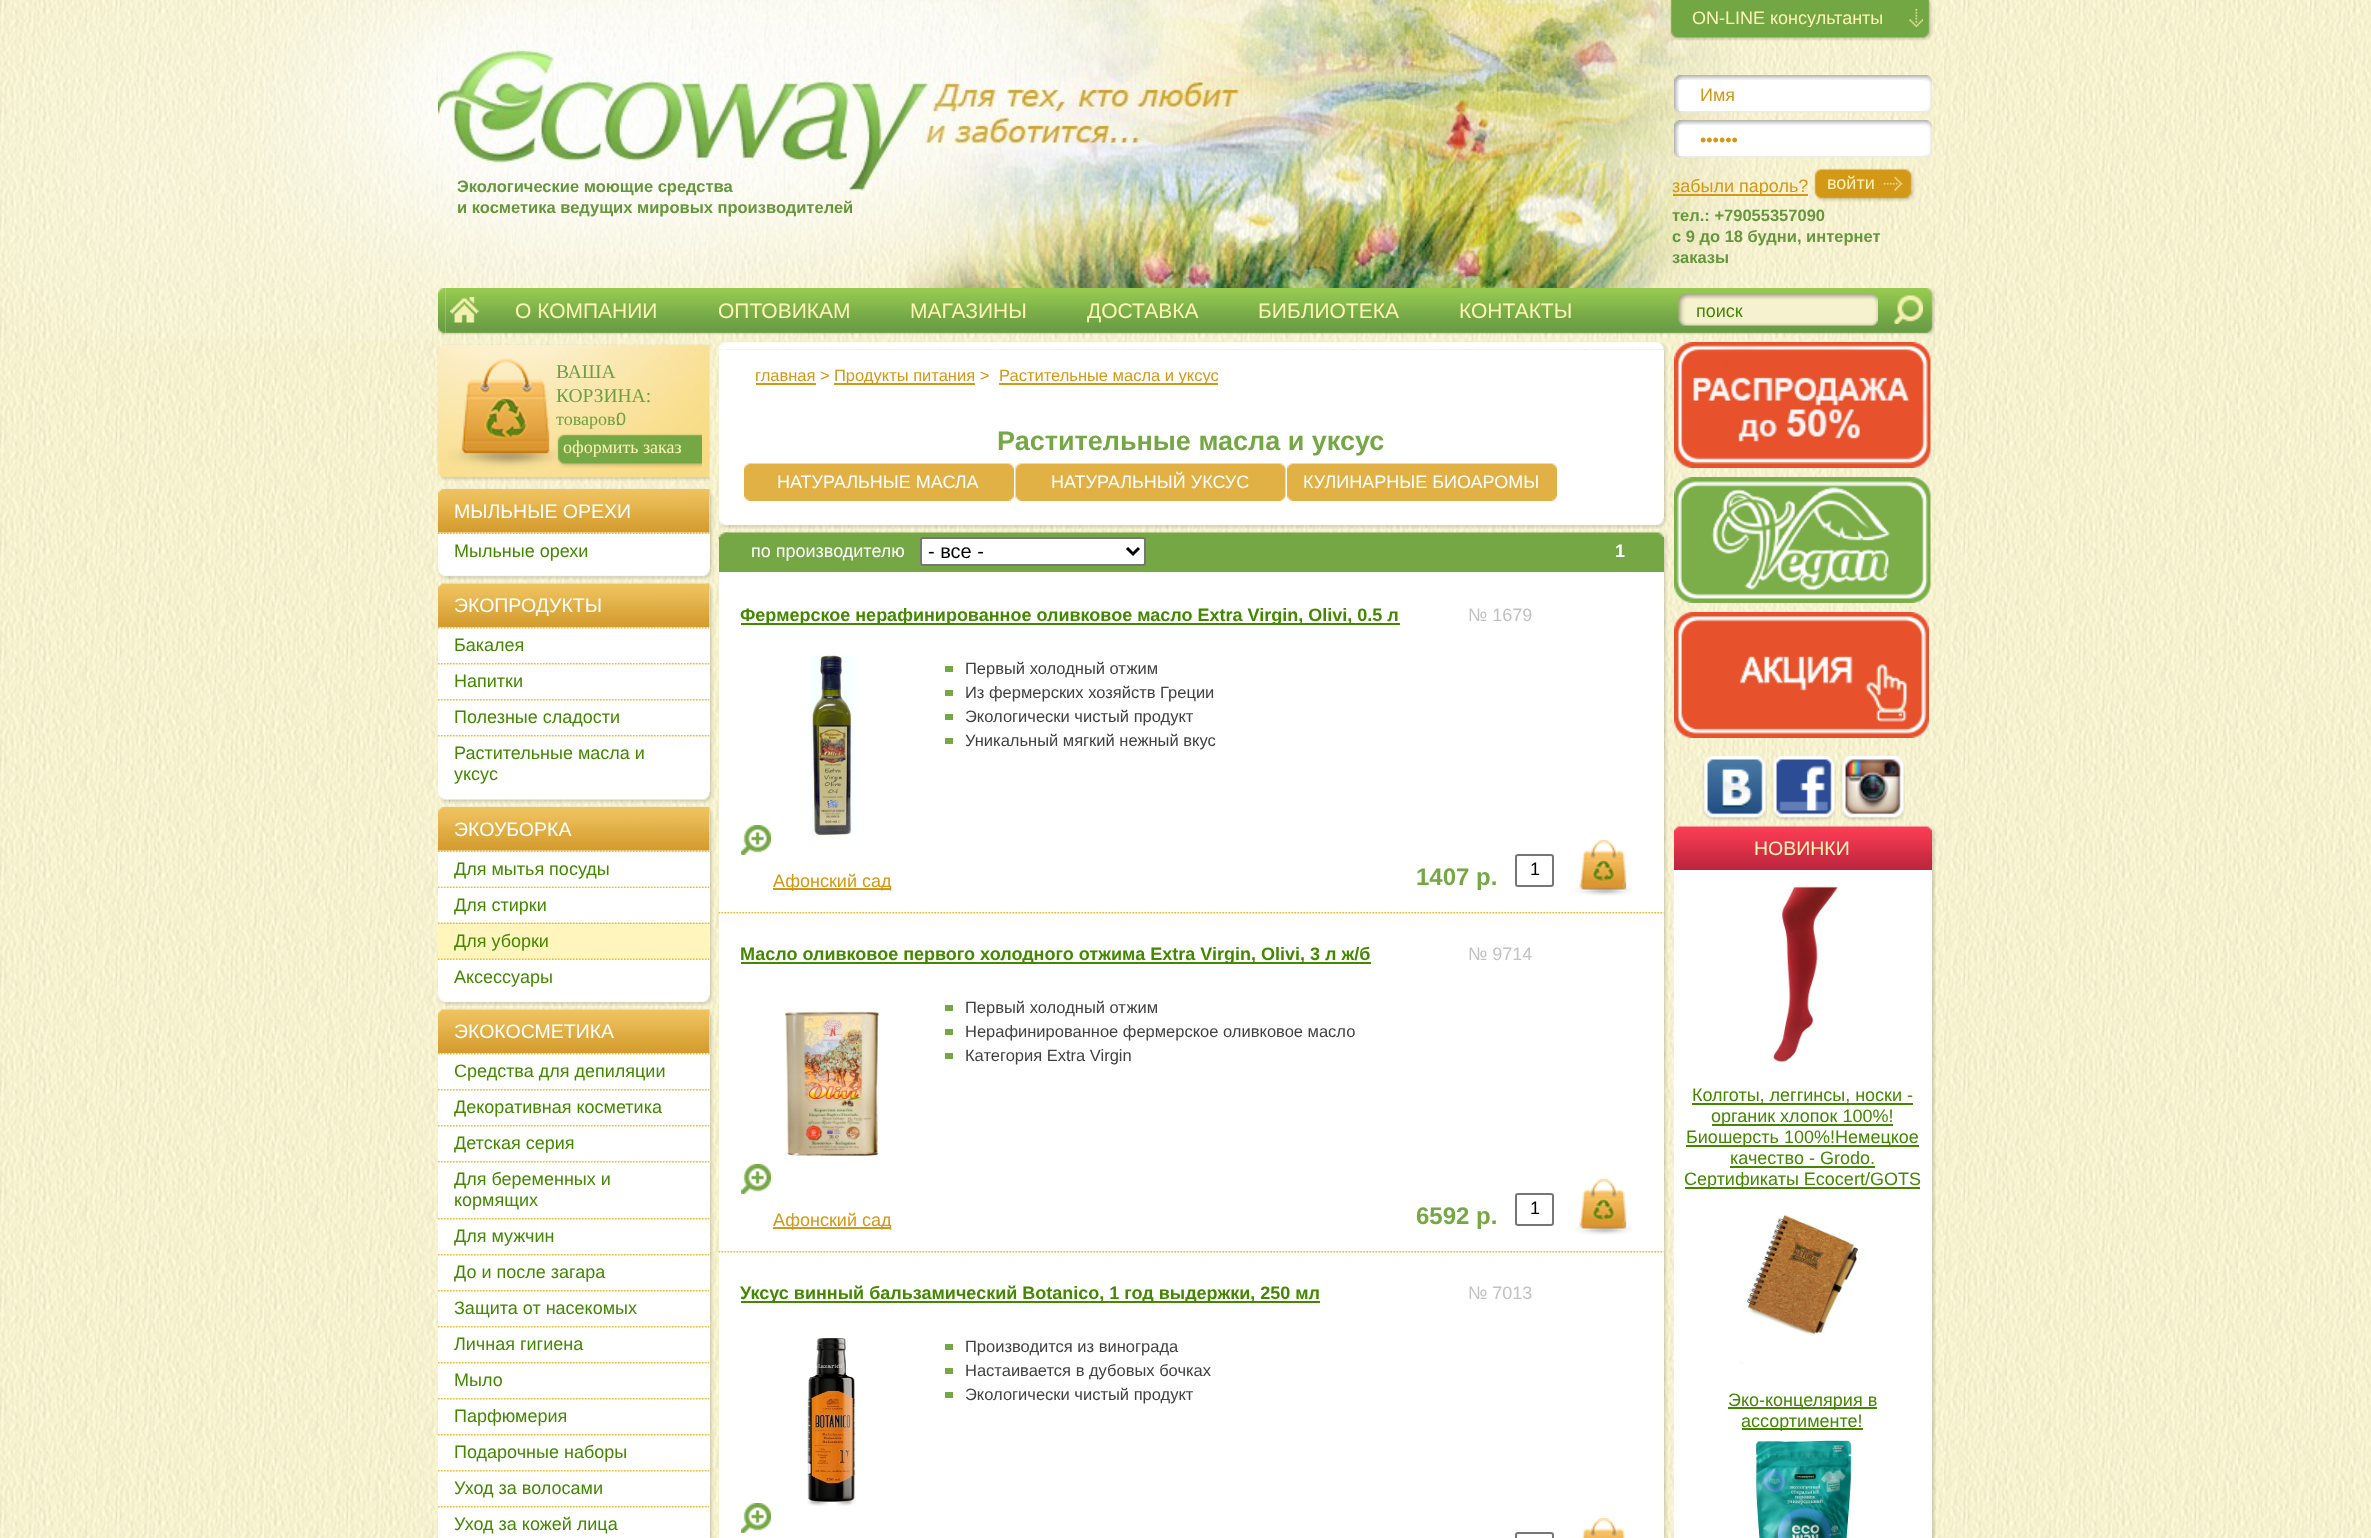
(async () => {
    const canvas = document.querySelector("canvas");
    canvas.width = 2371;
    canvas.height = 1538;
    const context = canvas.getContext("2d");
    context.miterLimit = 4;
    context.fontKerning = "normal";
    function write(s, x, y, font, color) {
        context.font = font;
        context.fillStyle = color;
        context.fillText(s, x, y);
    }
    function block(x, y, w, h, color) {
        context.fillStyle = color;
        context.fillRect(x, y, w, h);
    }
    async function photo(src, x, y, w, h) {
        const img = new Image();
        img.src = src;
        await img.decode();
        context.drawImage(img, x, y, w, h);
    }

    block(0, 0, 2371, 1538, "rgb(255, 255, 255)");
    await photo("media/1.png", 0, 0, 2371, 1538);
    await photo("media/2.png", 438, 0, 1119, 303);
    await photo("media/3.png", 0, 0, 438, 340);
    await photo("media/4.png", 1557, 0, 174, 288);
    await photo("media/5.png", 1670, 0, 263, 41);
    await photo("media/6.png", 1909, 9, 14, 18);
    context.save();
    context.beginPath();
    context.rect(1671, 9, 252, 18);
    context.clip();
    write("ON-LINE консультанты", 1692, 24, "18px Liberation Sans", "rgb(253, 244, 181)");
    context.restore();
    write("Экологические моющие средства", 457, 192, "bold 16.5px Liberation Sans", "rgb(102, 150, 61)");
    write("и косметика ведущих мировых производителей", 457, 213, "bold 16.5px Liberation Sans", "rgb(102, 150, 61)");
    await photo("media/7.png", 1674, 75, 258, 38);
    block(1679, 80, 244, 31, "rgb(255, 255, 255)");
    write("Имя", 1700, 101, "18px Liberation Sans", "rgb(210, 152, 22)");
    await photo("media/8.png", 1674, 120, 258, 38);
    block(1679, 125, 244, 31, "rgb(255, 255, 255)");
    write("••••••", 1700, 146, "18px Liberation Sans", "rgb(210, 152, 22)");
    block(1673, 194, 135, 2, "rgb(210, 152, 22)");
    write("забыли пароль?", 1672, 192, "18px Liberation Sans", "rgb(210, 152, 22)");
    await photo("media/9.png", 1814, 168, 101, 34);
    write("войти", 1827, 189, "18px Liberation Sans", "rgb(253, 244, 181)");
    write("тел.: +79055357090", 1672, 221, "bold 16.5px Liberation Sans", "rgb(102, 150, 61)");
    write("c 9 до 18 будни, интернет", 1672, 242, "bold 16.5px Liberation Sans", "rgb(102, 150, 61)");
    write("заказы", 1672, 263, "bold 16.5px Liberation Sans", "rgb(102, 150, 61)");
    await photo("media/10.png", 438, 288, 8, 48);
    await photo("media/11.png", 445, 288, 1481, 47);
    await photo("media/12.png", 1926, 288, 9, 48);
    await photo("media/13.png", 450, 297, 29, 26);
    write("О КОМПАНИИ", 515, 318, "21px Liberation Sans", "rgb(253, 244, 181)");
    write("ОПТОВИКАМ", 718, 318, "21px Liberation Sans", "rgb(253, 244, 181)");
    write("МАГАЗИНЫ", 910, 318, "21px Liberation Sans", "rgb(253, 244, 181)");
    write("ДОСТАВКА", 1087, 318, "21px Liberation Sans", "rgb(253, 244, 181)");
    write("БИБЛИОТЕКА", 1258, 318, "21px Liberation Sans", "rgb(253, 244, 181)");
    write("КОНТАКТЫ", 1459, 318, "21px Liberation Sans", "rgb(253, 244, 181)");
    await photo("media/14.png", 1678, 294, 200, 32);
    block(1685, 299, 189, 24, "rgb(246, 242, 208)");
    write("поиск", 1696, 317, "18px Liberation Sans", "rgb(67, 136, 0)");
    await photo("media/15.png", 1894, 295, 29, 29);
    await photo("media/16.png", 437, 344, 273, 137);
    write("ВАША", 556, 378, "19.5px Liberation Serif", "rgb(108, 160, 67)");
    write("КОРЗИНА:", 556, 402, "19.5px Liberation Serif", "rgb(108, 160, 67)");
    write("товаров:", 556, 425, "18px Liberation Serif", "rgb(108, 160, 67)");
    write("0", 616, 425, "18px Liberation Sans", "rgb(108, 160, 67)");
    await photo("media/17.png", 556, 433, 146, 35);
    write("оформить заказ", 563, 453, "18px Liberation Serif", "rgb(253, 244, 181)");
    await photo("media/18.png", 437, 488, 10, 9);
    await photo("media/21.png", 709, 496, 5, 73);
    await photo("media/19.png", 709, 490, 4, 7);
    await photo("media/20.png", 446, 488, 259, 1);
    await photo("media/24.png", 437, 568, 13, 12);
    await photo("media/25.png", 702, 568, 12, 12);
    block(438, 497, 272, 72, "rgb(255, 255, 255)");
    await photo("media/22.png", 438, 489, 272, 44);
    write("МЫЛЬНЫЕ ОРЕХИ", 454, 518, "19.5px Liberation Sans", "rgb(255, 255, 255)");
    await photo("media/23.png", 438, 532, 272, 2);
    write("Мыльные орехи", 454, 557, "18px Liberation Sans", "rgb(67, 136, 0)");
    await photo("media/26.png", 448, 569, 254, 11);
    await photo("media/27.png", 437, 583, 10, 8);
    await photo("media/28.png", 705, 583, 8, 8);
    await photo("media/29.png", 446, 582, 259, 2);
    await photo("media/30.png", 710, 591, 4, 201);
    block(438, 591, 272, 201, "rgb(255, 255, 255)");
    await photo("media/31.png", 438, 583, 272, 44);
    write("ЭКОПРОДУКТЫ", 454, 612, "19.5px Liberation Sans", "rgb(255, 255, 255)");
    await photo("media/32.png", 438, 627, 272, 2);
    write("Бакалея", 454, 651, "18px Liberation Sans", "rgb(67, 136, 0)");
    await photo("media/32.png", 438, 663, 272, 2);
    write("Напитки", 454, 687, "18px Liberation Sans", "rgb(67, 136, 0)");
    await photo("media/32.png", 438, 699, 272, 2);
    write("Полезные сладости", 454, 723, "18px Liberation Sans", "rgb(67, 136, 0)");
    await photo("media/32.png", 438, 735, 272, 2);
    write("Растительные масла и", 454, 759, "18px Liberation Sans", "rgb(67, 136, 0)");
    write("уксус", 454, 780, "18px Liberation Sans", "rgb(67, 136, 0)");
    await photo("media/33.png", 437, 792, 13, 12);
    await photo("media/34.png", 702, 792, 12, 12);
    await photo("media/35.png", 448, 792, 254, 12);
    await photo("media/36.png", 437, 806, 10, 9);
    await photo("media/39.png", 709, 814, 5, 181);
    await photo("media/37.png", 709, 808, 4, 7);
    await photo("media/38.png", 446, 806, 259, 1);
    await photo("media/44.png", 437, 994, 13, 12);
    await photo("media/45.png", 702, 994, 12, 12);
    block(438, 815, 272, 180, "rgb(255, 255, 255)");
    await photo("media/40.png", 438, 807, 272, 44);
    write("ЭКОУБОРКА", 454, 836, "19.5px Liberation Sans", "rgb(255, 255, 255)");
    await photo("media/23.png", 438, 850, 272, 2);
    write("Для мытья посуды", 454, 875, "18px Liberation Sans", "rgb(67, 136, 0)");
    await photo("media/41.png", 438, 886, 272, 2);
    write("Для стирки", 454, 911, "18px Liberation Sans", "rgb(67, 136, 0)");
    block(438, 923, 272, 36, "rgb(255, 245, 189)");
    await photo("media/42.png", 438, 922, 272, 2);
    write("Для уборки", 454, 947, "18px Liberation Sans", "rgb(67, 136, 0)");
    await photo("media/43.png", 438, 958, 272, 2);
    write("Аксессуары", 454, 983, "18px Liberation Sans", "rgb(67, 136, 0)");
    await photo("media/46.png", 448, 995, 254, 11);
    await photo("media/47.png", 438, 1009, 9, 4);
    await photo("media/48.png", 705, 1009, 8, 8);
    await photo("media/49.png", 446, 1008, 259, 2);
    await photo("media/50.png", 710, 1017, 4, 521);
    block(438, 1017, 272, 521, "rgb(255, 255, 255)");
    await photo("media/51.png", 438, 1009, 272, 44);
    write("ЭКОКОСМЕТИКА", 454, 1038, "19.5px Liberation Sans", "rgb(255, 255, 255)");
    await photo("media/32.png", 438, 1053, 272, 2);
    write("Cредства для депиляции", 454, 1077, "18px Liberation Sans", "rgb(67, 136, 0)");
    await photo("media/32.png", 438, 1089, 272, 2);
    write("Декоративная косметика", 454, 1113, "18px Liberation Sans", "rgb(67, 136, 0)");
    await photo("media/32.png", 438, 1125, 272, 2);
    write("Детская серия", 454, 1149, "18px Liberation Sans", "rgb(67, 136, 0)");
    await photo("media/32.png", 438, 1161, 272, 2);
    write("Для беременных и", 454, 1185, "18px Liberation Sans", "rgb(67, 136, 0)");
    write("кормящих", 454, 1206, "18px Liberation Sans", "rgb(67, 136, 0)");
    await photo("media/32.png", 438, 1218, 272, 2);
    write("Для мужчин", 454, 1242, "18px Liberation Sans", "rgb(67, 136, 0)");
    await photo("media/32.png", 438, 1254, 272, 2);
    write("До и после загара", 454, 1278, "18px Liberation Sans", "rgb(67, 136, 0)");
    await photo("media/32.png", 438, 1290, 272, 2);
    write("Защита от насекомых", 454, 1314, "18px Liberation Sans", "rgb(67, 136, 0)");
    await photo("media/32.png", 438, 1326, 272, 2);
    write("Личная гигиена", 454, 1350, "18px Liberation Sans", "rgb(67, 136, 0)");
    await photo("media/32.png", 438, 1362, 272, 2);
    write("Мыло", 454, 1386, "18px Liberation Sans", "rgb(67, 136, 0)");
    await photo("media/32.png", 438, 1398, 272, 2);
    write("Парфюмерия", 454, 1422, "18px Liberation Sans", "rgb(67, 136, 0)");
    await photo("media/32.png", 438, 1434, 272, 2);
    write("Подарочные наборы", 454, 1458, "18px Liberation Sans", "rgb(67, 136, 0)");
    await photo("media/32.png", 438, 1470, 272, 2);
    write("Уход за волосами", 454, 1494, "18px Liberation Sans", "rgb(67, 136, 0)");
    await photo("media/32.png", 438, 1506, 272, 2);
    write("Уход за кожей лица", 454, 1530, "18px Liberation Sans", "rgb(67, 136, 0)");
    await photo("media/52.png", 718, 342, 10, 8);
    await photo("media/55.png", 1663, 349, 5, 169);
    await photo("media/53.png", 1659, 342, 8, 8);
    await photo("media/54.png", 726, 341, 933, 9);
    await photo("media/59.png", 717, 517, 14, 12);
    await photo("media/60.png", 1656, 517, 12, 12);
    block(719, 350, 945, 168, "rgb(255, 255, 255)");
    write("главная >", 755, 381, "16.5px Liberation Sans", "rgb(210, 152, 22)");
    block(756, 383, 60, 2, "rgb(210, 152, 22)");
    block(834, 383, 141, 2, "rgb(210, 152, 22)");
    write("Продукты питания >", 834, 381, "16.5px Liberation Sans", "rgb(210, 152, 22)");
    block(999, 383, 219, 2, "rgb(210, 152, 22)");
    write("Растительные масла и уксус", 999, 381, "16.5px Liberation Sans", "rgb(210, 152, 22)");
    write("Растительные масла и уксус", 997, 450, "bold 27px Liberation Sans", "rgb(117, 167, 69)");
    await photo("media/56.png", 744, 463, 270, 38);
    write("НАТУРАЛЬНЫЕ МАСЛА", 777, 488, "18px Liberation Sans", "rgb(255, 255, 255)");
    await photo("media/57.png", 1015, 463, 271, 38);
    write("НАТУРАЛЬНЫЙ УКСУС", 1051, 488, "18px Liberation Sans", "rgb(255, 255, 255)");
    await photo("media/58.png", 1287, 463, 270, 38);
    write("КУЛИНАРНЫЕ БИОАРОМЫ", 1303, 488, "18px Liberation Sans", "rgb(255, 255, 255)");
    await photo("media/61.png", 729, 518, 927, 11);
    await photo("media/62.png", 718, 532, 10, 8);
    await photo("media/63.png", 1659, 532, 8, 8);
    await photo("media/64.png", 726, 531, 933, 6);
    await photo("media/65.png", 1664, 540, 4, 998);
    block(719, 572, 945, 966, "rgb(255, 255, 255)");
    block(719, 537, 945, 35, "rgb(117, 167, 69)");
    write("по производителю", 751, 557, "18px Liberation Sans", "rgb(255, 255, 255)");
    context.beginPath();
    context.roundRect(921, 538, 224, 27, 2);
    context.fill();
    context.strokeStyle = "rgb(118, 118, 118)";
    context.lineWidth = 2;
    context.stroke();
    context.beginPath();
    context.moveTo(1127, 548);
    context.lineTo(1133, 554);
    context.lineTo(1139, 548);
    context.strokeStyle = "rgb(0, 0, 0)";
    context.lineWidth = 3;
    context.stroke();
    write("- все -", 928, 558, "20px Liberation Sans", "rgb(0, 0, 0)");
    write("1", 1615, 557, "bold 18px Liberation Sans", "rgb(255, 255, 255)");
    await photo("media/66.png", 718, 912, 946, 2);
    block(741, 623, 659, 2, "rgb(67, 136, 0)");
    write("Фермерское нерафинированное оливковое масло Extra Virgin, Olivi, 0.5 л", 740, 621, "bold 18px Liberation Sans", "rgb(67, 136, 0)");
    write("№ 1679", 1468, 621, "18px Liberation Sans", "rgb(194, 194, 194)");
    await photo("media/67.png", 810, 655, 45, 181);
    await photo("media/68.png", 741, 825, 30, 30);
    block(945, 666, 8, 6, "rgb(117, 167, 69)");
    write("Первый холодный отжим", 965, 674, "16.5px Liberation Sans", "rgb(65, 65, 65)");
    block(945, 690, 8, 6, "rgb(117, 167, 69)");
    write("Из фермерских хозяйств Греции", 965, 698, "16.5px Liberation Sans", "rgb(65, 65, 65)");
    block(945, 714, 8, 6, "rgb(117, 167, 69)");
    write("Экологически чистый продукт", 965, 722, "16.5px Liberation Sans", "rgb(65, 65, 65)");
    block(945, 738, 8, 6, "rgb(117, 167, 69)");
    write("Уникальный мягкий нежный вкус", 965, 746, "16.5px Liberation Sans", "rgb(65, 65, 65)");
    block(773, 888, 118, 2, "rgb(210, 152, 22)");
    write("Афонский сад", 773, 887, "18px Liberation Sans", "rgb(210, 152, 22)");
    write("1407 р.", 1416, 885, "bold 24px Liberation Sans", "rgb(117, 167, 69)");
    context.beginPath();
    context.roundRect(1516, 855, 37, 31, 2);
    context.strokeStyle = "rgb(118, 118, 118)";
    context.lineWidth = 2;
    context.stroke();
    write("1", 1530, 875, "18px Liberation Sans", "rgb(0, 0, 0)");
    await photo("media/69.png", 1575, 840, 57, 56);
    await photo("media/70.png", 718, 1251, 946, 2);
    block(741, 962, 630, 2, "rgb(67, 136, 0)");
    write("Масло оливковое первого холодного отжима Extra Virgin, Olivi, 3 л ж/б", 740, 960, "bold 18px Liberation Sans", "rgb(67, 136, 0)");
    write("№ 9714", 1468, 960, "18px Liberation Sans", "rgb(194, 194, 194)");
    await photo("media/71.png", 784, 1010, 96, 148);
    await photo("media/68.png", 741, 1164, 30, 30);
    block(945, 1005, 8, 6, "rgb(117, 167, 69)");
    write("Первый холодный отжим", 965, 1013, "16.5px Liberation Sans", "rgb(65, 65, 65)");
    block(945, 1029, 8, 6, "rgb(117, 167, 69)");
    write("Нерафинированное фермерское оливковое масло", 965, 1037, "16.5px Liberation Sans", "rgb(65, 65, 65)");
    block(945, 1053, 8, 6, "rgb(117, 167, 69)");
    write("Категория Extra Virgin", 965, 1061, "16.5px Liberation Sans", "rgb(65, 65, 65)");
    block(773, 1227, 118, 2, "rgb(210, 152, 22)");
    write("Афонский сад", 773, 1226, "18px Liberation Sans", "rgb(210, 152, 22)");
    write("6592 р.", 1416, 1224, "bold 24px Liberation Sans", "rgb(117, 167, 69)");
    context.beginPath();
    context.roundRect(1516, 1194, 37, 31, 2);
    context.stroke();
    write("1", 1530, 1214, "18px Liberation Sans", "rgb(0, 0, 0)");
    await photo("media/69.png", 1575, 1179, 57, 56);
    block(741, 1301, 579, 2, "rgb(67, 136, 0)");
    write("Уксус винный бальзамический Botanico, 1 год выдержки, 250 мл", 740, 1299, "bold 18px Liberation Sans", "rgb(67, 136, 0)");
    write("№ 7013", 1468, 1299, "18px Liberation Sans", "rgb(194, 194, 194)");
    await photo("media/72.png", 807, 1338, 49, 168);
    await photo("media/68.png", 741, 1503, 30, 30);
    block(945, 1344, 8, 6, "rgb(117, 167, 69)");
    write("Производится из винограда", 965, 1352, "16.5px Liberation Sans", "rgb(65, 65, 65)");
    block(945, 1368, 8, 6, "rgb(117, 167, 69)");
    write("Настаивается в дубовых бочках", 965, 1376, "16.5px Liberation Sans", "rgb(65, 65, 65)");
    block(945, 1392, 8, 6, "rgb(117, 167, 69)");
    write("Экологически чистый продукт", 965, 1400, "16.5px Liberation Sans", "rgb(65, 65, 65)");
    context.beginPath();
    context.roundRect(1516, 1533, 37, 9, 2);
    context.stroke();
    await photo("media/73.png", 1582, 1518, 43, 20);
    await photo("media/74.png", 1674, 342, 257, 126);
    await photo("media/75.png", 1674, 477, 257, 126);
    await photo("media/76.png", 1674, 612, 255, 126);
    await photo("media/77.png", 1702, 756, 65, 65);
    await photo("media/78.png", 1771, 756, 65, 65);
    await photo("media/79.png", 1840, 756, 65, 65);
    await photo("media/80.png", 1674, 826, 9, 4);
    await photo("media/81.png", 1927, 826, 9, 8);
    await photo("media/82.png", 1682, 825, 246, 2);
    await photo("media/83.png", 1932, 834, 4, 704);
    block(1674, 870, 258, 668, "rgb(255, 255, 255)");
    await photo("media/84.png", 1674, 826, 258, 44);
    write("НОВИНКИ", 1754, 855, "19.5px Liberation Sans", "rgb(253, 244, 181)");
    await photo("media/85.png", 1772, 885, 70, 179);
    block(1692, 1103, 221, 2, "rgb(67, 136, 0)");
    write("Колготы, леггинсы, носки -", 1692, 1101, "18px Liberation Sans", "rgb(67, 136, 0)");
    block(1712, 1124, 181, 2, "rgb(67, 136, 0)");
    write("органик хлопок 100%!", 1711, 1122, "18px Liberation Sans", "rgb(67, 136, 0)");
    block(1686, 1145, 233, 2, "rgb(67, 136, 0)");
    write("Биошерсть 100%!Немецкое", 1686, 1143, "18px Liberation Sans", "rgb(67, 136, 0)");
    write("качество - Grodo.", 1730, 1164, "18px Liberation Sans", "rgb(67, 136, 0)");
    block(1730, 1166, 145, 2, "rgb(67, 136, 0)");
    block(1685, 1187, 235, 2, "rgb(67, 136, 0)");
    write("Сертификаты Ecocert/GOTS", 1684, 1185, "18px Liberation Sans", "rgb(67, 136, 0)");
    await photo("media/86.png", 1739, 1195, 127, 169);
    block(1728, 1407, 149, 2, "rgb(67, 136, 0)");
    write("Эко-концелярия в", 1728, 1406, "18px Liberation Sans", "rgb(67, 136, 0)");
    block(1742, 1428, 121, 2, "rgb(67, 136, 0)");
    write("ассортименте!", 1741, 1427, "18px Liberation Sans", "rgb(67, 136, 0)");
    await photo("media/87.png", 1755, 1440, 97, 98);
})();
